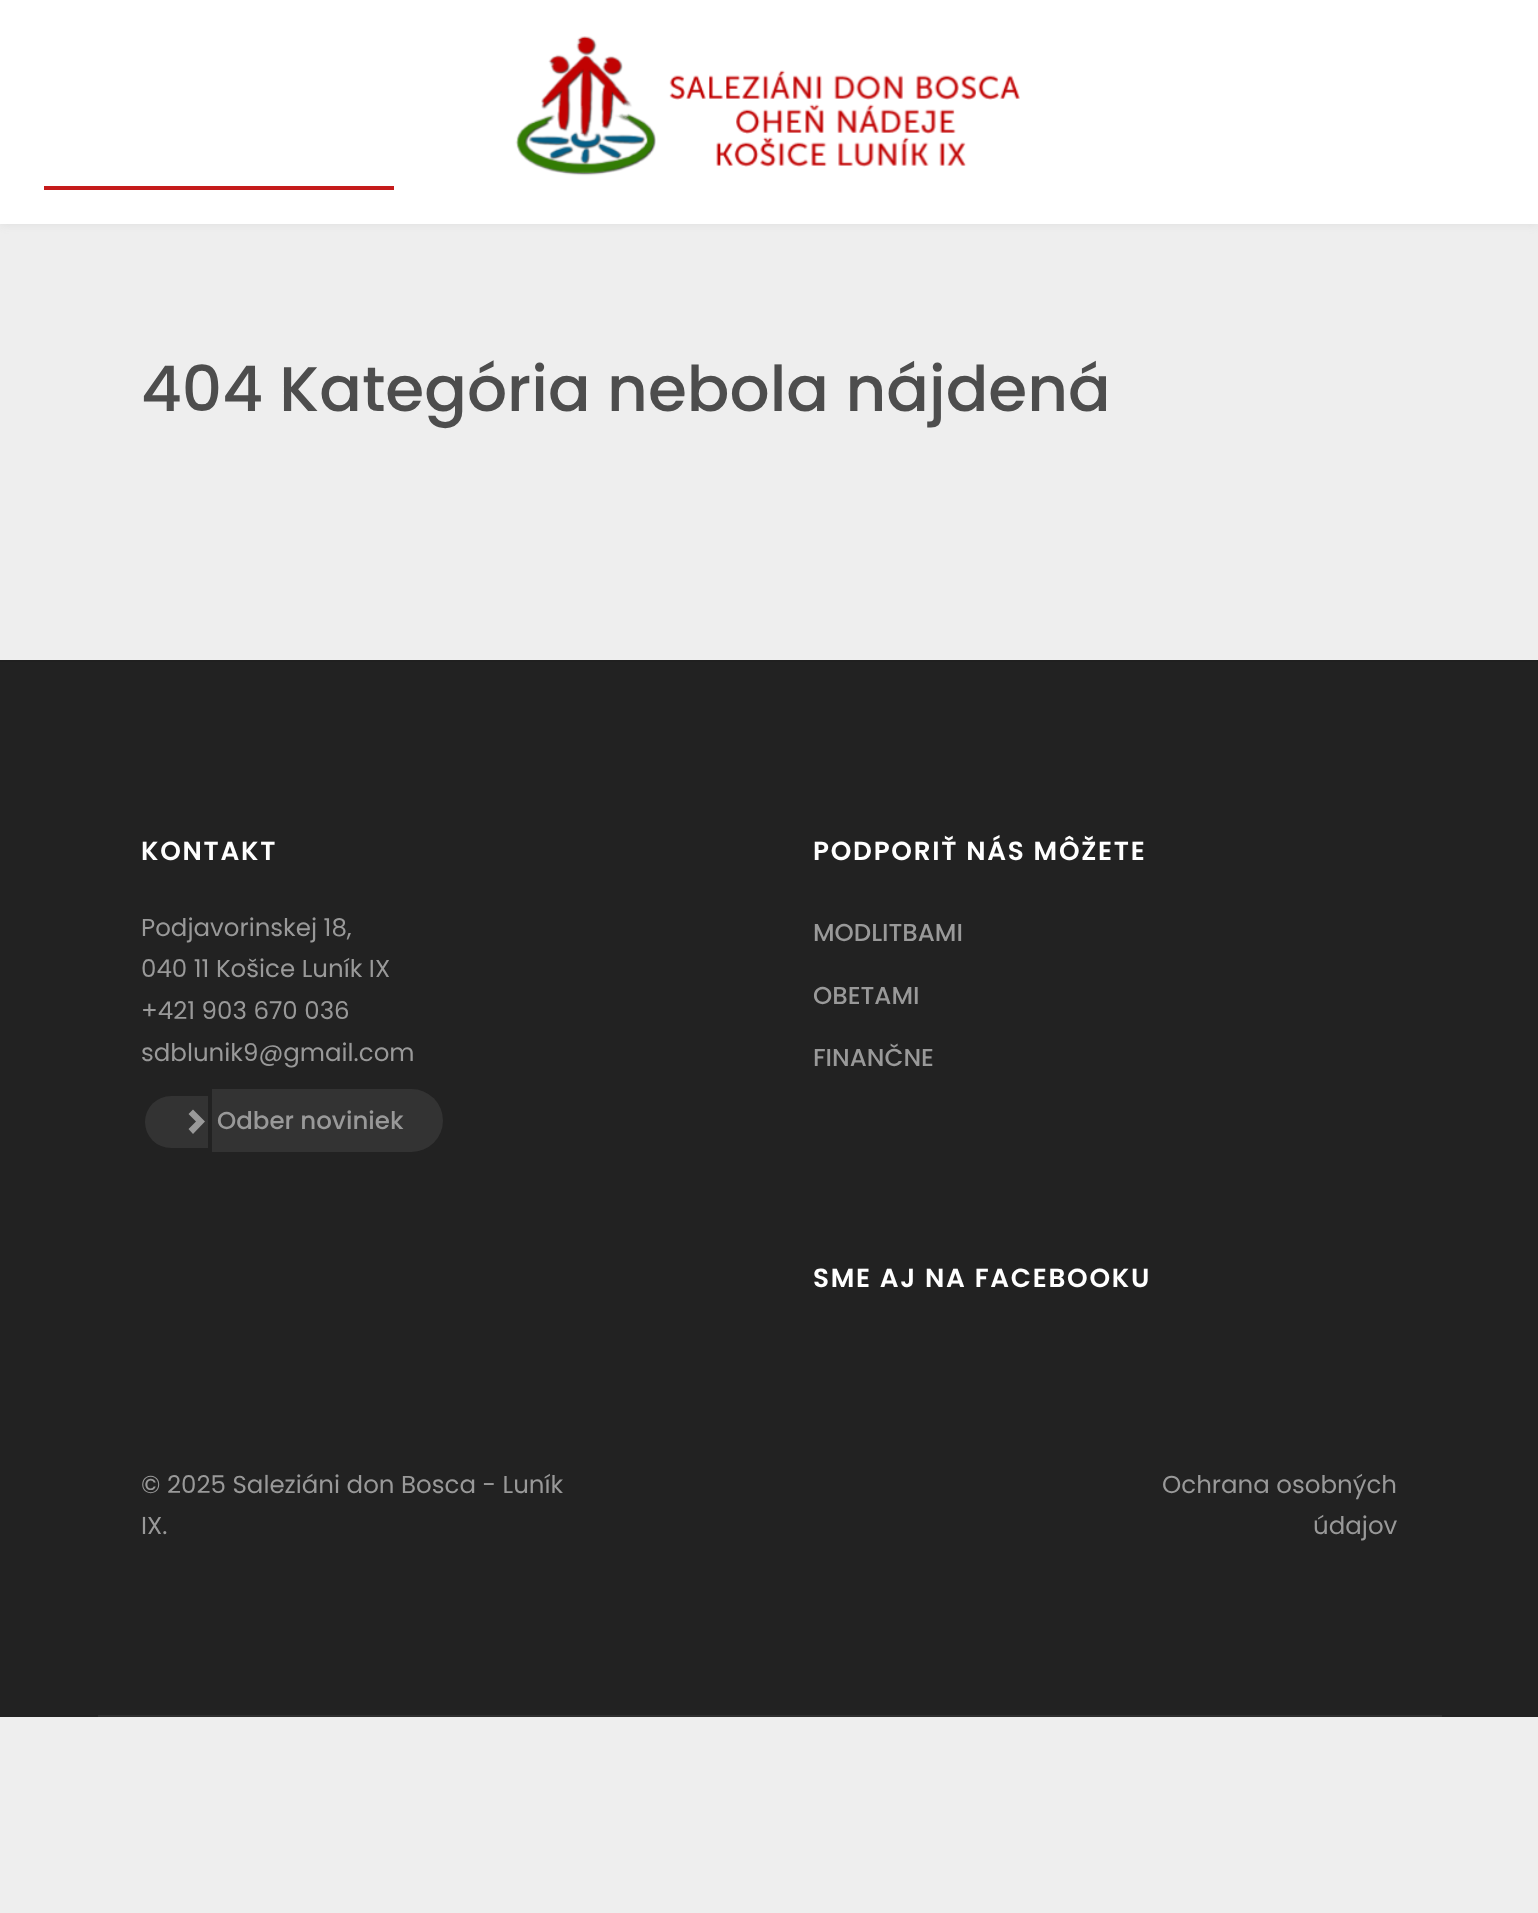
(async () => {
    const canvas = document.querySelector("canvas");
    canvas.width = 1538;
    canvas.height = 1913;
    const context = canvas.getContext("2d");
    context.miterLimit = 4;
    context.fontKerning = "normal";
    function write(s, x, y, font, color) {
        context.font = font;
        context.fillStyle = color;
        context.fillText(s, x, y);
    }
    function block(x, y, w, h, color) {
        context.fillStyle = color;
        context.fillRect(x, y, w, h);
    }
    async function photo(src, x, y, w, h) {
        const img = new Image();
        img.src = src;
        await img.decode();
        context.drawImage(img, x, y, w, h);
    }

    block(0, 0, 1538, 1913, "rgb(238, 238, 238)");
    context.fillStyle = "rgb(220, 220, 220)";
    context.filter = "blur(4.5px)";
    context.beginPath();
    context.rect(0, 0, 1538, 224);
    context.fill();
    context.filter = "none";
    block(0, 0, 1538, 224, "rgb(255, 255, 255)");
    await photo("media/1.png", 515, 36, 505, 140);
    block(44, 186, 350, 4, "rgb(197, 27, 27)");
    write("404 Kategória nebola nájdená", 141, 411, "500 63px Poppins", "rgb(77, 77, 77)");
    block(0, 662, 1538, 1055, "rgb(34, 34, 34)");
    block(0, 660, 1538, 2, "rgb(32, 32, 32)");
    block(98, 1715, 1344, 2, "rgb(47, 47, 47)");
    context.letterSpacing = "1.75px";
    write("KONTAKT", 141, 860, "600 26.25px Poppins", "rgb(255, 255, 255)");
    context.letterSpacing = "0px";
    write("Podjavorinskej 18,", 141, 936, "24.5px Poppins", "rgb(153, 153, 153)");
    write("040 11 Košice Luník IX", 141, 977, "24.5px Poppins", "rgb(153, 153, 153)");
    write("+421 903 670 036", 141, 1019, "24.5px Poppins", "rgb(153, 153, 153)");
    write("sdblunik9@gmail.com", 141, 1061, "24.5px Poppins", "rgb(153, 153, 153)");
    context.fillStyle = "rgb(51, 51, 51)";
    context.beginPath();
    context.roundRect(145, 1096, 63, 52, [26, 0, 0, 26]);
    context.fill();
    context.beginPath();
    context.roundRect(212, 1089, 231, 63, [0, 31.5, 31.5, 0]);
    context.fill();
    context.fillStyle = "rgb(153, 153, 153)";
    context.beginPath();
    context.moveTo(193, 1109.5);
    context.lineTo(205, 1121.5);
    context.lineTo(193, 1134);
    context.lineTo(188.5, 1129);
    context.lineTo(196, 1121.5);
    context.lineTo(188.5, 1114);
    context.closePath();
    context.fill();
    write("Odber noviniek", 217, 1129, "500 24.5px Poppins", "rgb(153, 153, 153)");
    context.letterSpacing = "1.75px";
    write("PODPORIŤ NÁS MÔŽETE", 813, 860, "600 26.25px Poppins", "rgb(255, 255, 255)");
    context.letterSpacing = "0px";
    write("MODLITBAMI", 813, 941, "500 24.5px Poppins", "rgb(153, 153, 153)");
    context.save();
    context.beginPath();
    context.rect(814, 971, 105, 49);
    context.clip();
    write("OBETAMI", 813, 1004, "500 24.5px Poppins", "rgb(153, 153, 153)");
    context.restore();
    write("FINANČNE", 813, 1066, "500 24.5px Poppins", "rgb(153, 153, 153)");
    context.letterSpacing = "1.75px";
    write("SME AJ NA FACEBOOKU", 813, 1287, "600 26.25px Poppins", "rgb(255, 255, 255)");
    context.letterSpacing = "0px";
    write("© 2025 Saleziáni don Bosca - Luník", 141, 1493, "24.5px Poppins", "rgb(153, 153, 153)");
    write("IX.", 141, 1534, "24.5px Poppins", "rgb(153, 153, 153)");
    write("Ochrana osobných", 1162, 1493, "24.5px Poppins", "rgb(153, 153, 153)");
    write("údajov", 1313, 1534, "24.5px Poppins", "rgb(153, 153, 153)");
})();
